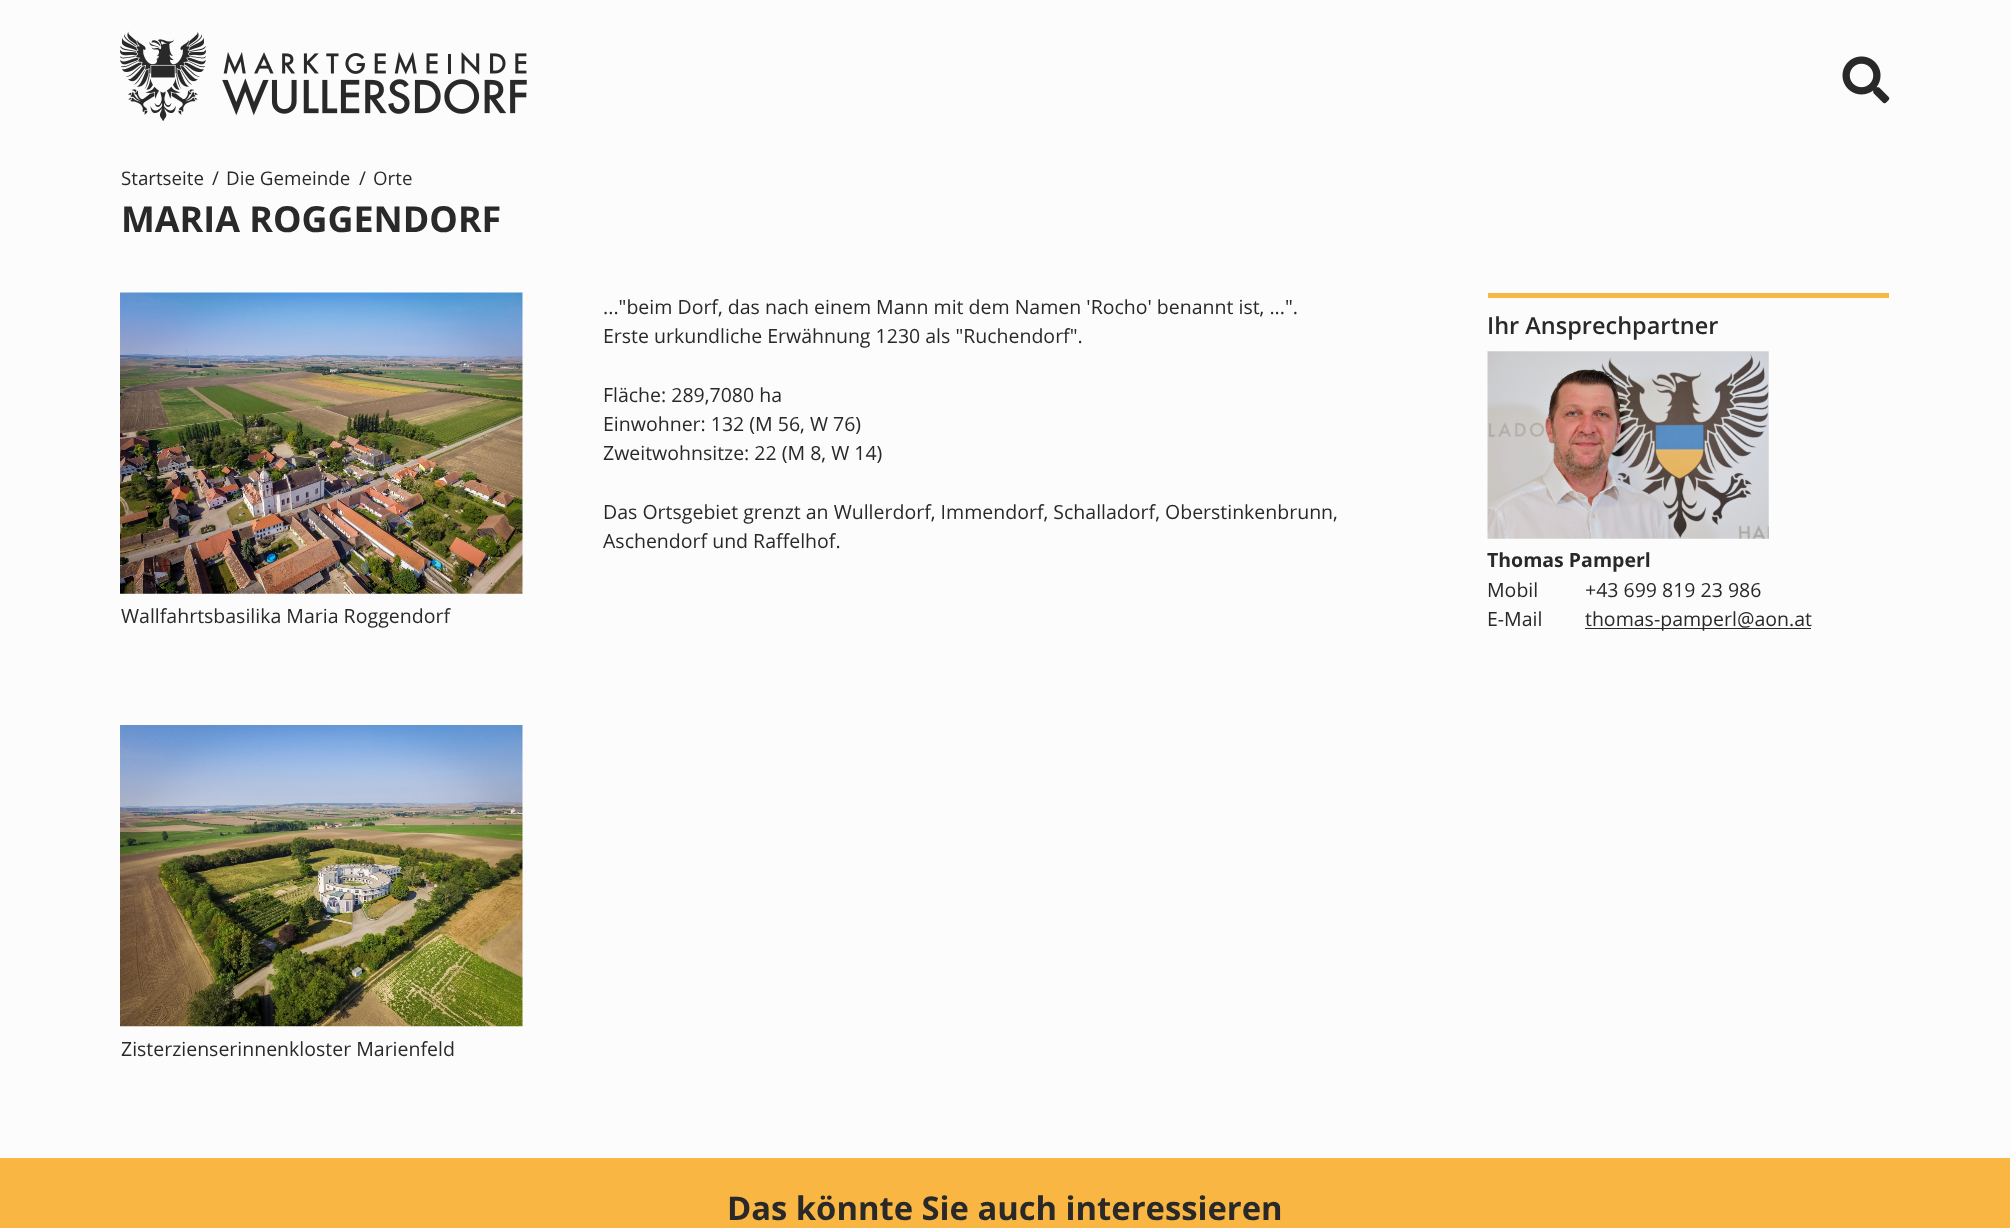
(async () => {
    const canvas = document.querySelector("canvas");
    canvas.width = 2010;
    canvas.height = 1228;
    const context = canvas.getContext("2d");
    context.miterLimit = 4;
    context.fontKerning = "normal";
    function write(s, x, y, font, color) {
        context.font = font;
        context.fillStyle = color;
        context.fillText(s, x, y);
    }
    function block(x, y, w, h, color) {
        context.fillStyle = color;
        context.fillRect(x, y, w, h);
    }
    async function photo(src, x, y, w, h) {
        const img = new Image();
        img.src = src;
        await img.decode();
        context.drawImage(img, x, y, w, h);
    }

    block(0, 0, 2010, 1228, "rgb(252, 252, 252)");
    await photo("media/1.png", 120, 31, 407, 90);
    await photo("media/2.png", 1842, 56, 48, 48);
    write("Startseite", 121, 185, "18.75px Open Sans", "rgb(41, 41, 41)");
    write("/", 212, 185, "18.75px Open Sans", "rgb(41, 41, 41)");
    write("Die Gemeinde", 226, 185, "18.75px Open Sans", "rgb(41, 41, 41)");
    write("/", 359, 185, "18.75px Open Sans", "rgb(41, 41, 41)");
    write("Orte", 373, 185, "18.75px Open Sans", "rgb(41, 41, 41)");
    write("MARIA ROGGENDORF", 121, 232, "bold 35.9px Open Sans", "rgb(41, 41, 41)");
    write("...\"beim Dorf, das nach einem Mann mit dem Namen 'Rocho' benannt ist, ...\".", 603, 314, "19.5px Open Sans", "rgb(41, 41, 41)");
    write("Erste urkundliche Erwähnung 1230 als \"Ruchendorf\".", 603, 343, "19.5px Open Sans", "rgb(41, 41, 41)");
    write("Fläche: 289,7080 ha", 603, 402, "19.5px Open Sans", "rgb(41, 41, 41)");
    write("Einwohner: 132 (M 56, W 76)", 603, 431, "19.5px Open Sans", "rgb(41, 41, 41)");
    write("Zweitwohnsitze: 22 (M 8, W 14)", 603, 460, "19.5px Open Sans", "rgb(41, 41, 41)");
    write("Das Ortsgebiet grenzt an Wullerdorf, Immendorf, Schalladorf, Oberstinkenbrunn,", 603, 519, "19.5px Open Sans", "rgb(41, 41, 41)");
    write("Aschendorf und Raffelhof.", 603, 548, "19.5px Open Sans", "rgb(41, 41, 41)");
    await photo("media/3.png", 120, 292, 403, 302);
    write("Wallfahrtsbasilika Maria Roggendorf", 121, 623, "19.5px Open Sans", "rgb(41, 41, 41)");
    block(1488, 293, 401, 5, "rgb(249, 182, 67)");
    write("Ihr Ansprechpartner", 1487, 334, "600 23.5px Open Sans", "rgb(41, 41, 41)");
    await photo("media/4.png", 1487, 351, 282, 188);
    write("Thomas Pamperl", 1487, 567, "bold 19.5px Open Sans", "rgb(41, 41, 41)");
    write("Mobil", 1487, 597, "19.5px Open Sans", "rgb(41, 41, 41)");
    write("+43 699 819 23 986", 1585, 597, "19.5px Open Sans", "rgb(41, 41, 41)");
    write("E-Mail", 1487, 626, "19.5px Open Sans", "rgb(41, 41, 41)");
    block(1585, 628, 226, 1, "rgb(41, 41, 41)");
    write("thomas-pamperl@aon.at", 1585, 626, "19.5px Open Sans", "rgb(41, 41, 41)");
    await photo("media/5.png", 120, 725, 403, 302);
    write("Zisterzienserinnenkloster Marienfeld", 121, 1056, "19.5px Open Sans", "rgb(41, 41, 41)");
    block(0, 1158, 2010, 70, "rgb(249, 182, 67)");
    write("Das könnte Sie auch interessieren", 727, 1220, "bold 32.75px Open Sans", "rgb(41, 41, 41)");
})();
